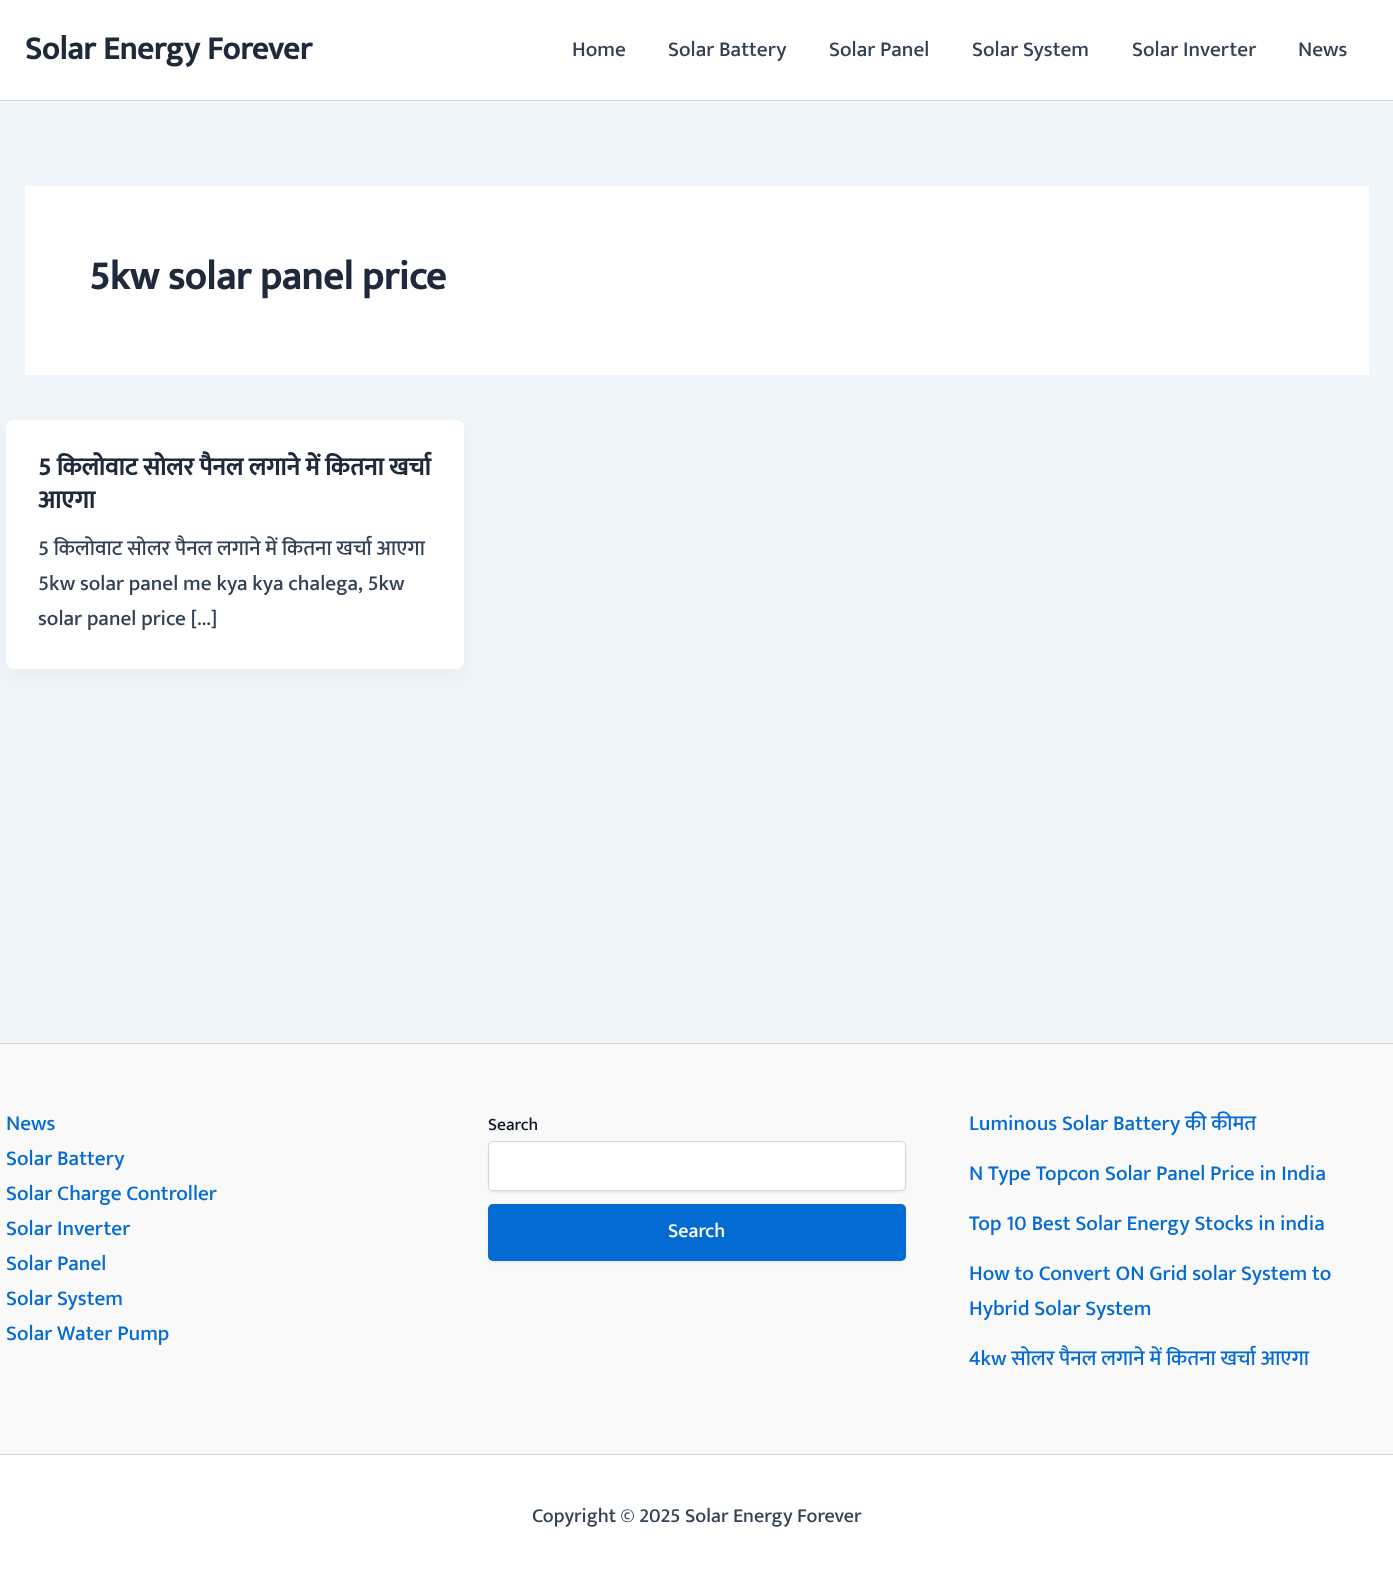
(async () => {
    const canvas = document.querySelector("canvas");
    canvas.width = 1393;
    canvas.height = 1580;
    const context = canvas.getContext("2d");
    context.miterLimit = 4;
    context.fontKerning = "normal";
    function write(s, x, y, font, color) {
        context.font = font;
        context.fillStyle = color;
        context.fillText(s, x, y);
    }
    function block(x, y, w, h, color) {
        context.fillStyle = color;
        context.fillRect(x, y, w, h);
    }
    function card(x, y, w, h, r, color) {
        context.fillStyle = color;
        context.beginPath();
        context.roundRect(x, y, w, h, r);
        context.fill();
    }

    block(0, 0, 1393, 1580, "rgb(240, 245, 250)");
    block(0, 0, 1393, 100, "rgb(255, 255, 255)");
    block(0, 100, 1393, 1, "rgb(209, 213, 219)");
    write("Solar Energy Forever", 25, 59, "bold 32.5px Mukta", "rgb(30, 41, 59)");
    write("Home", 572, 56, "500 21.25px Mukta", "rgb(51, 65, 85)");
    write("Solar Battery", 668, 56, "500 21.25px Mukta", "rgb(51, 65, 85)");
    write("Solar Panel", 829, 56, "500 21.25px Mukta", "rgb(51, 65, 85)");
    write("Solar System", 972, 56, "500 21.25px Mukta", "rgb(51, 65, 85)");
    write("Solar Inverter", 1132, 56, "500 21.25px Mukta", "rgb(51, 65, 85)");
    write("News", 1298, 56, "500 21.25px Mukta", "rgb(51, 65, 85)");
    block(25, 186, 1344, 189, "rgb(255, 255, 255)");
    write("5kw solar panel price", 89, 289, "bold 40px Mukta", "rgb(30, 41, 59)");
    context.fillStyle = "rgba(16, 24, 40, 0.05)";
    context.filter = "blur(9.5px)";
    context.beginPath();
    context.roundRect(9, 430, 452, 244, 5);
    context.fill();
    context.filter = "none";
    card(6, 420, 458, 249, 8, "rgb(255, 255, 255)");
    write("5 किलोवाट सोलर पैनल लगाने में कितना खर्चा", 38, 475, "bold 25px Mukta", "rgb(30, 41, 59)");
    write("आएगा", 38, 508, "bold 25px Mukta", "rgb(30, 41, 59)");
    write("5 किलोवाट सोलर पैनल लगाने में कितना खर्चा आएगा", 38, 555, "500 21.25px Mukta", "rgb(51, 65, 85)");
    write("5kw solar panel me kya kya chalega, 5kw", 38, 590, "500 21.25px Mukta", "rgb(51, 65, 85)");
    write("solar panel price […]", 38, 625, "500 21.25px Mukta", "rgb(51, 65, 85)");
    block(0, 1044, 1393, 410, "rgb(249, 249, 249)");
    block(0, 1043, 1393, 1, "rgb(209, 213, 219)");
    write("News", 6, 1130, "500 21.25px Mukta", "rgb(4, 107, 210)");
    write("Solar Battery", 6, 1165, "500 21.25px Mukta", "rgb(4, 107, 210)");
    write("Solar Charge Controller", 6, 1200, "500 21.25px Mukta", "rgb(4, 107, 210)");
    write("Solar Inverter", 6, 1235, "500 21.25px Mukta", "rgb(4, 107, 210)");
    write("Solar Panel", 6, 1270, "500 21.25px Mukta", "rgb(4, 107, 210)");
    write("Solar System", 6, 1305, "500 21.25px Mukta", "rgb(4, 107, 210)");
    write("Solar Water Pump", 6, 1340, "500 21.25px Mukta", "rgb(4, 107, 210)");
    write("Search", 488, 1130, "500 17.5px Mukta", "rgb(17, 24, 39)");
    context.fillStyle = "rgba(0, 0, 0, 0.05)";
    context.filter = "blur(1px)";
    context.beginPath();
    context.roundRect(488, 1143, 418, 50, 5);
    context.fill();
    context.filter = "none";
    context.fillStyle = "rgb(255, 255, 255)";
    context.beginPath();
    context.roundRect(488.5, 1141.5, 417, 49, 4.5);
    context.fill();
    context.strokeStyle = "rgb(209, 213, 219)";
    context.stroke();
    context.fillStyle = "rgba(0, 0, 0, 0.05)";
    context.filter = "blur(1px)";
    context.beginPath();
    context.roundRect(488, 1205, 418, 58, 5);
    context.fill();
    context.filter = "none";
    card(488, 1204, 418, 57, 5, "rgb(4, 107, 210)");
    write("Search", 668, 1237, "500 20px Mukta", "rgb(255, 255, 255)");
    write("Luminous Solar Battery की कीमत", 969, 1130, "500 21.25px Mukta", "rgb(4, 107, 210)");
    write("N Type Topcon Solar Panel Price in India", 969, 1180, "500 21.25px Mukta", "rgb(4, 107, 210)");
    write("Top 10 Best Solar Energy Stocks in india", 969, 1230, "500 21.25px Mukta", "rgb(4, 107, 210)");
    write("How to Convert ON Grid solar System to", 969, 1280, "500 21.25px Mukta", "rgb(4, 107, 210)");
    write("Hybrid Solar System", 969, 1315, "500 21.25px Mukta", "rgb(4, 107, 210)");
    write("4kw सोलर पैनल लगाने में कितना खर्चा आएगा", 969, 1365, "500 21.25px Mukta", "rgb(4, 107, 210)");
    block(0, 1455, 1393, 125, "rgb(255, 255, 255)");
    block(0, 1454, 1393, 1, "rgb(209, 213, 219)");
    write("Copyright © 2025 Solar Energy Forever", 532, 1522, "500 20px Mukta", "rgb(51, 65, 85)");
})();
